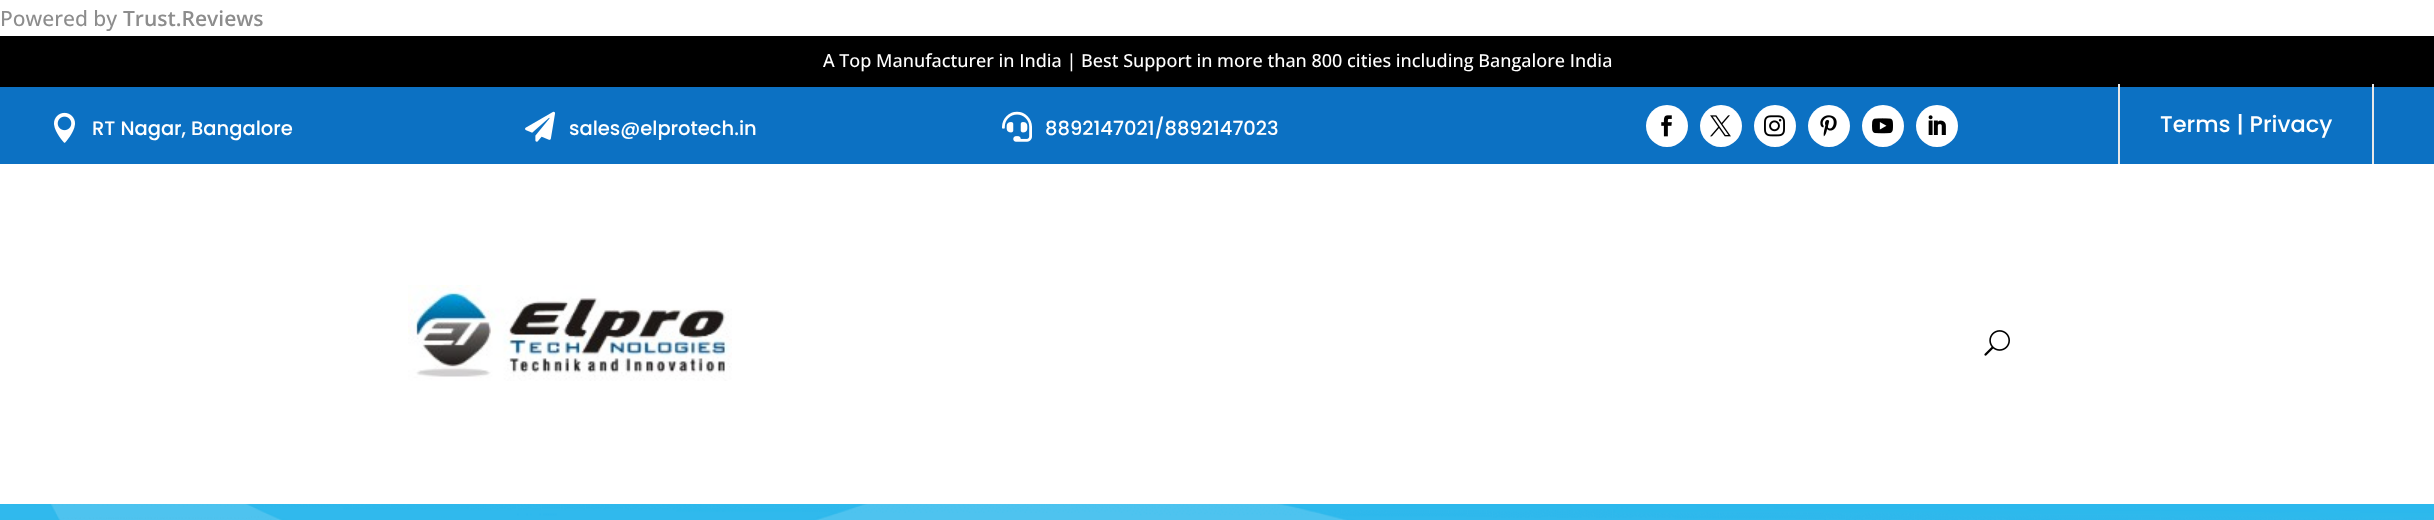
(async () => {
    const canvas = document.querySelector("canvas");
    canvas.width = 2434;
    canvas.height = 520;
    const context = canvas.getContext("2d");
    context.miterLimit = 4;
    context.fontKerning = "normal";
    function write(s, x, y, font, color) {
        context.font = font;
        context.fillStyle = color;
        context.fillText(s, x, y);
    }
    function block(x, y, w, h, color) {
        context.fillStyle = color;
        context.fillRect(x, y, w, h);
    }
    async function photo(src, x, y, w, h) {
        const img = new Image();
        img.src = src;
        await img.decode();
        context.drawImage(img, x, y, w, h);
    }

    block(0, 0, 2434, 520, "rgb(255, 255, 255)");
    write("Powered by", 0, 26, "500 21px Open Sans", "rgb(141, 141, 141)");
    write("Trust.Reviews", 123, 26, "600 21px Open Sans", "rgb(141, 141, 141)");
    block(0, 36, 2434, 51, "rgb(0, 0, 0)");
    write("A Top Manufacturer in India | Best Support in more than 800 cities including Bangalore India", 823, 67, "500 18px Open Sans", "rgb(255, 255, 255)");
    block(0, 87, 2434, 77, "rgb(12, 113, 195)");
    await photo("media/1.png", 54, 112, 21, 31);
    write("RT Nagar, Bangalore", 92, 135, "500 19.5px Poppins", "rgb(255, 255, 255)");
    await photo("media/2.png", 525, 111, 31, 31);
    write("sales@elprotech.in", 569, 135, "500 19.5px Poppins", "rgb(255, 255, 255)");
    await photo("media/3.png", 1002, 111, 30, 31);
    write("8892147021/8892147023", 1045, 135, "500 19.5px Poppins", "rgb(255, 255, 255)");
    context.beginPath();
    context.arc(1667, 126, 21, 0, Math.PI * 2);
    context.fill();
    await photo("media/4.png", 1661, 115, 11, 22);
    context.beginPath();
    context.arc(1721, 126, 21, 0, Math.PI * 2);
    context.fill();
    await photo("media/5.png", 1710, 115, 21, 22);
    context.beginPath();
    context.arc(1775, 126, 21, 0, Math.PI * 2);
    context.fill();
    await photo("media/6.png", 1764, 115, 21, 22);
    context.beginPath();
    context.arc(1829, 126, 21, 0, Math.PI * 2);
    context.fill();
    await photo("media/7.png", 1820, 115, 17, 22);
    context.beginPath();
    context.arc(1883, 126, 21, 0, Math.PI * 2);
    context.fill();
    await photo("media/8.png", 1872, 118, 21, 16);
    context.beginPath();
    context.arc(1937, 126, 21, 0, Math.PI * 2);
    context.fill();
    await photo("media/9.png", 1928, 115, 18, 20);
    block(2372, 84, 2, 80, "rgb(232, 232, 232)");
    block(2118, 84, 2, 80, "rgb(232, 232, 232)");
    write("Terms | Privacy", 2160, 132, "500 22.5px Poppins", "rgb(255, 255, 255)");
    await photo("media/10.png", 408, 285, 324, 96);
    await photo("media/11.png", 1984, 330, 26, 26);
    await photo("media/12.png", 0, 504, 2434, 16);
})();
